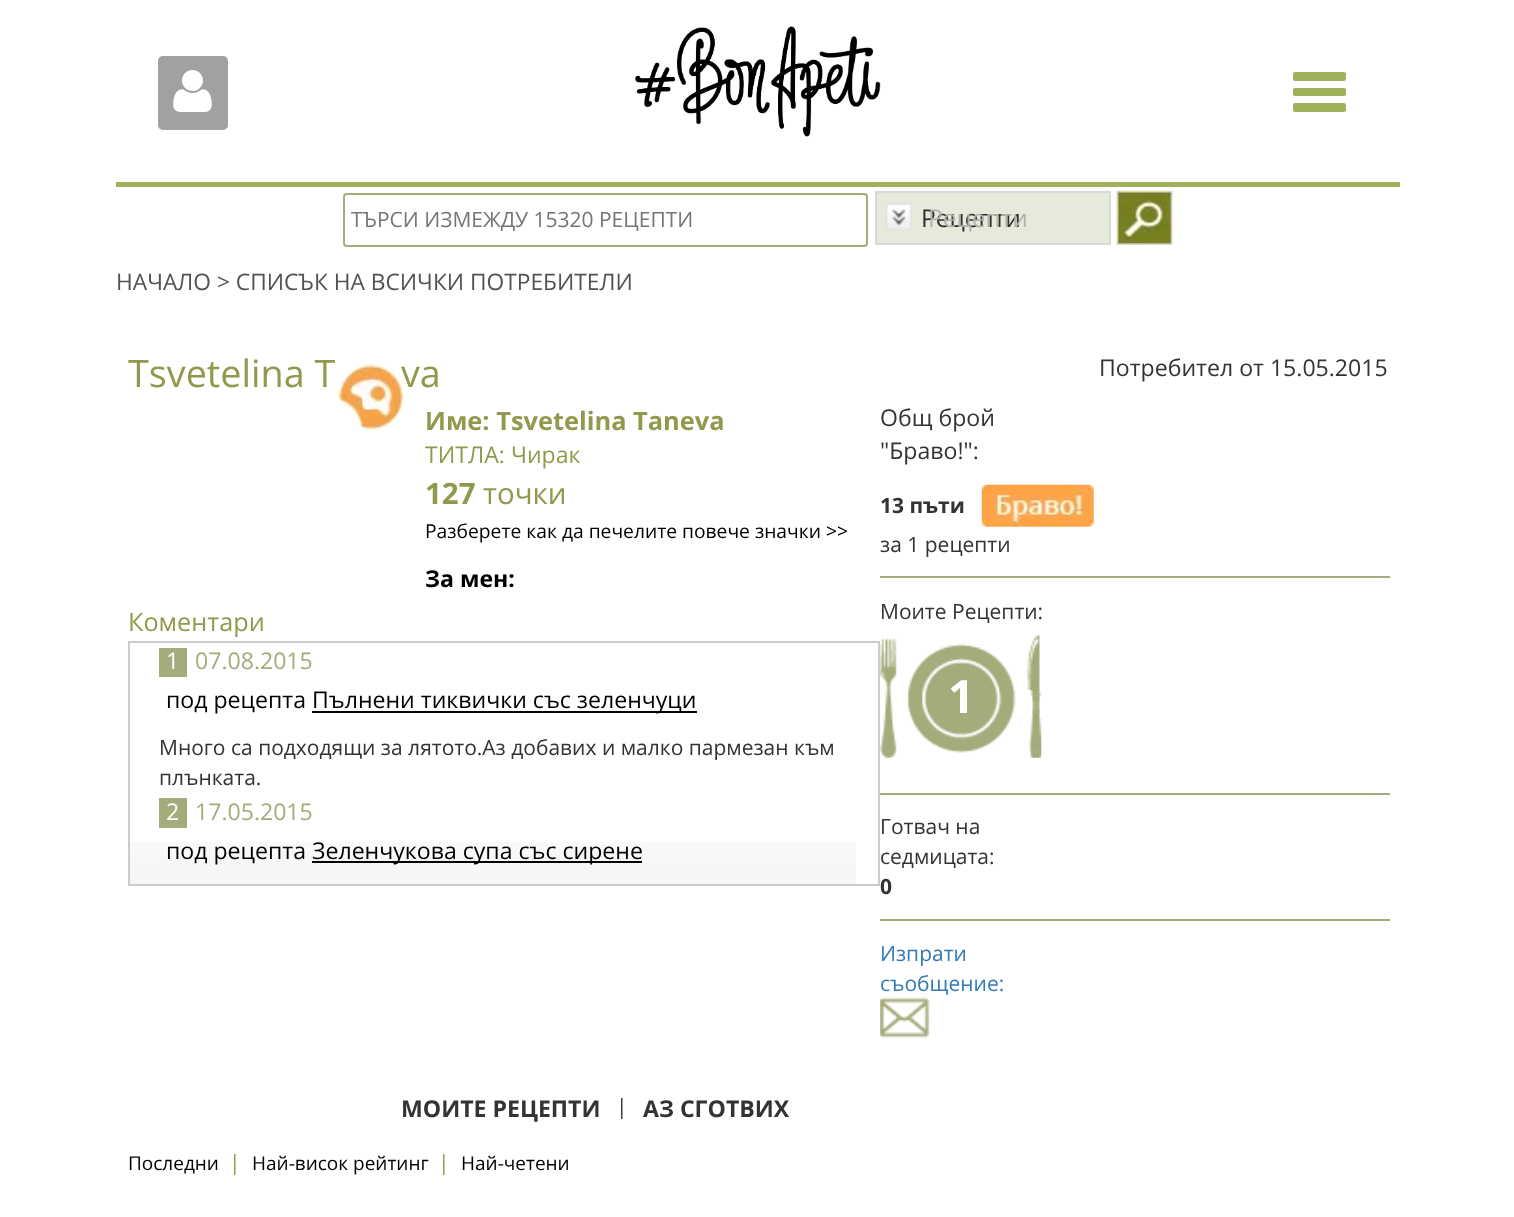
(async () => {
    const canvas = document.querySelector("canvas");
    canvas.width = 1514;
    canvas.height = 1217;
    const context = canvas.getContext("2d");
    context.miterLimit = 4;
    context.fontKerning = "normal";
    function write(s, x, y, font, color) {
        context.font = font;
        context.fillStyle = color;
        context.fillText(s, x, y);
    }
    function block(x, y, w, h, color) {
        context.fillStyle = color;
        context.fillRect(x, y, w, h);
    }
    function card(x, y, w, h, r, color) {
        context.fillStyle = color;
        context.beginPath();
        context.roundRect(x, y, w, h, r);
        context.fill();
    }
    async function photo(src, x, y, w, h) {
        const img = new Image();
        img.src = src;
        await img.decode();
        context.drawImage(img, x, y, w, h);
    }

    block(0, 0, 1514, 1217, "rgb(255, 255, 255)");
    card(158, 56, 70, 74, 5, "rgb(161, 161, 161)");
    await photo("media/1.png", 173, 70, 39, 42);
    await photo("media/2.png", 635, 26, 246, 111);
    card(1293, 72, 53, 9, 2, "rgb(159, 178, 90)");
    card(1293, 88, 53, 8, 2, "rgb(159, 178, 90)");
    card(1293, 103, 53, 9, 2, "rgb(159, 178, 90)");
    block(116, 182, 1284, 5, "rgb(159, 178, 90)");
    block(877, 193, 232, 50, "rgb(230, 234, 219)");
    await photo("media/3.png", 885, 203, 27, 28);
    context.strokeStyle = "rgb(216, 216, 216)";
    context.lineWidth = 2;
    context.strokeRect(876, 192, 234, 52);
    write("Рецепти", 921, 227, "24.5px Open Sans", "rgb(45, 45, 45)");
    await photo("media/4.png", 1116, 190, 57, 55);
    context.beginPath();
    context.roundRect(344, 194, 523, 52, 3);
    context.strokeStyle = "rgb(165, 171, 123)";
    context.stroke();
    write("ТЪРСИ ИЗМЕЖДУ 15320 РЕЦЕПТИ", 351, 227, "21px Open Sans", "rgb(117, 117, 117)");
    write("Рецепти", 928, 227, "24.5px Open Sans", "rgb(176, 179, 169)");
    write("НАЧАЛО > СПИСЪК НА ВСИЧКИ ПОТРЕБИТЕЛИ", 116, 290, "22.75px Open Sans", "rgb(82, 82, 82)");
    write("Tsvetelina T", 128, 387, "37.75px Open Sans", "rgb(146, 153, 76)");
    write("va", 401, 387, "37.75px Open Sans", "rgb(146, 153, 76)");
    write("Потребител от 15.05.2015", 1099, 376, "23.1px Open Sans", "rgb(51, 51, 51)");
    await photo("media/5.png", 337, 364, 68, 67);
    write("Име: Tsvetelina Taneva", 425, 430, "bold 25.4px Open Sans", "rgb(146, 153, 76)");
    write("ТИТЛА: Чирак", 425, 463, "23.1px Open Sans", "rgb(146, 153, 76)");
    write("127", 425, 504, "bold 29.5px Open Sans", "rgb(146, 153, 76)");
    write("точки", 483, 504, "29.5px Open Sans", "rgb(146, 153, 76)");
    write("Разберете как да печелите повече значки >>", 425, 538, "19.25px Open Sans", "rgb(0, 0, 0)");
    write("За мен:", 425, 587, "bold 23.1px Open Sans", "rgb(0, 0, 0)");
    write("Коментари", 128, 631, "25.25px Open Sans", "rgb(146, 153, 76)");
    context.strokeStyle = "rgb(204, 204, 204)";
    context.strokeRect(129, 642, 750, 243);
    block(159, 648, 28, 29, "rgb(165, 171, 123)");
    write("1", 166, 669, "23.1px Open Sans", "rgb(255, 255, 255)");
    write("07.08.2015", 195, 669, "23.1px Open Sans", "rgb(165, 171, 123)");
    write("под рецепта", 166, 708, "23.1px Open Sans", "rgb(0, 0, 0)");
    block(312, 711, 385, 2, "rgb(0, 0, 0)");
    write("Пълнени тиквички със зеленчуци", 312, 708, "23.1px Open Sans", "rgb(0, 0, 0)");
    write("Много са подходящи за лятото.Аз добавих и малко пармезан към", 159, 755, "21px Open Sans", "rgb(51, 51, 51)");
    write("плънката.", 159, 785, "21px Open Sans", "rgb(51, 51, 51)");
    block(159, 798, 28, 30, "rgb(165, 171, 123)");
    write("2", 166, 820, "23.1px Open Sans", "rgb(255, 255, 255)");
    write("17.05.2015", 195, 820, "23.1px Open Sans", "rgb(165, 171, 123)");
    write("под рецепта", 166, 859, "23.1px Open Sans", "rgb(0, 0, 0)");
    block(312, 861, 330, 2, "rgb(0, 0, 0)");
    write("Зеленчукова супа със сирене", 312, 859, "23.1px Open Sans", "rgb(0, 0, 0)");
    await photo("media/6.png", 130, 842, 726, 42);
    write("Общ брой", 880, 426, "23.1px Open Sans", "rgb(51, 51, 51)");
    write("\"Браво!\":", 880, 459, "23.1px Open Sans", "rgb(51, 51, 51)");
    block(880, 576, 510, 2, "rgb(165, 171, 123)");
    write("13 пъти", 880, 513, "bold 21px Open Sans", "rgb(51, 51, 51)");
    await photo("media/7.png", 981, 484, 113, 43);
    write("за 1 рецепти", 880, 552, "21px Open Sans", "rgb(51, 51, 51)");
    block(880, 793, 510, 2, "rgb(165, 171, 123)");
    write("Моите Рецепти:", 880, 619, "21px Open Sans", "rgb(51, 51, 51)");
    await photo("media/8.png", 880, 635, 162, 123);
    write("1", 948, 713, "bold 46px Open Sans", "rgb(255, 255, 255)");
    block(880, 919, 510, 2, "rgb(165, 171, 123)");
    write("Готвач на", 880, 834, "21px Open Sans", "rgb(51, 51, 51)");
    write("седмицата:", 880, 864, "21px Open Sans", "rgb(51, 51, 51)");
    write("0", 880, 894, "bold 21px Open Sans", "rgb(51, 51, 51)");
    write("Изпрати", 880, 961, "21px Open Sans", "rgb(51, 122, 183)");
    write("съобщение:", 880, 991, "21px Open Sans", "rgb(51, 122, 183)");
    await photo("media/9.png", 880, 997, 50, 41);
    write("МОИТЕ РЕЦЕПТИ", 401, 1117, "bold 23.1px Open Sans", "rgb(51, 51, 51)");
    write("|", 616, 1114, "21px Open Sans", "rgb(51, 51, 51)");
    write("АЗ СГОТВИХ", 643, 1117, "bold 23.1px Open Sans", "rgb(51, 51, 51)");
    write("Последни", 128, 1170, "19px Open Sans", "rgb(0, 0, 0)");
    write("|", 229, 1170, "21px Open Sans", "rgb(146, 153, 76)");
    write("Най-висок рейтинг", 252, 1170, "19px Open Sans", "rgb(0, 0, 0)");
    write("|", 438, 1170, "21px Open Sans", "rgb(146, 153, 76)");
    write("Най-четени", 461, 1170, "19px Open Sans", "rgb(0, 0, 0)");
})();
